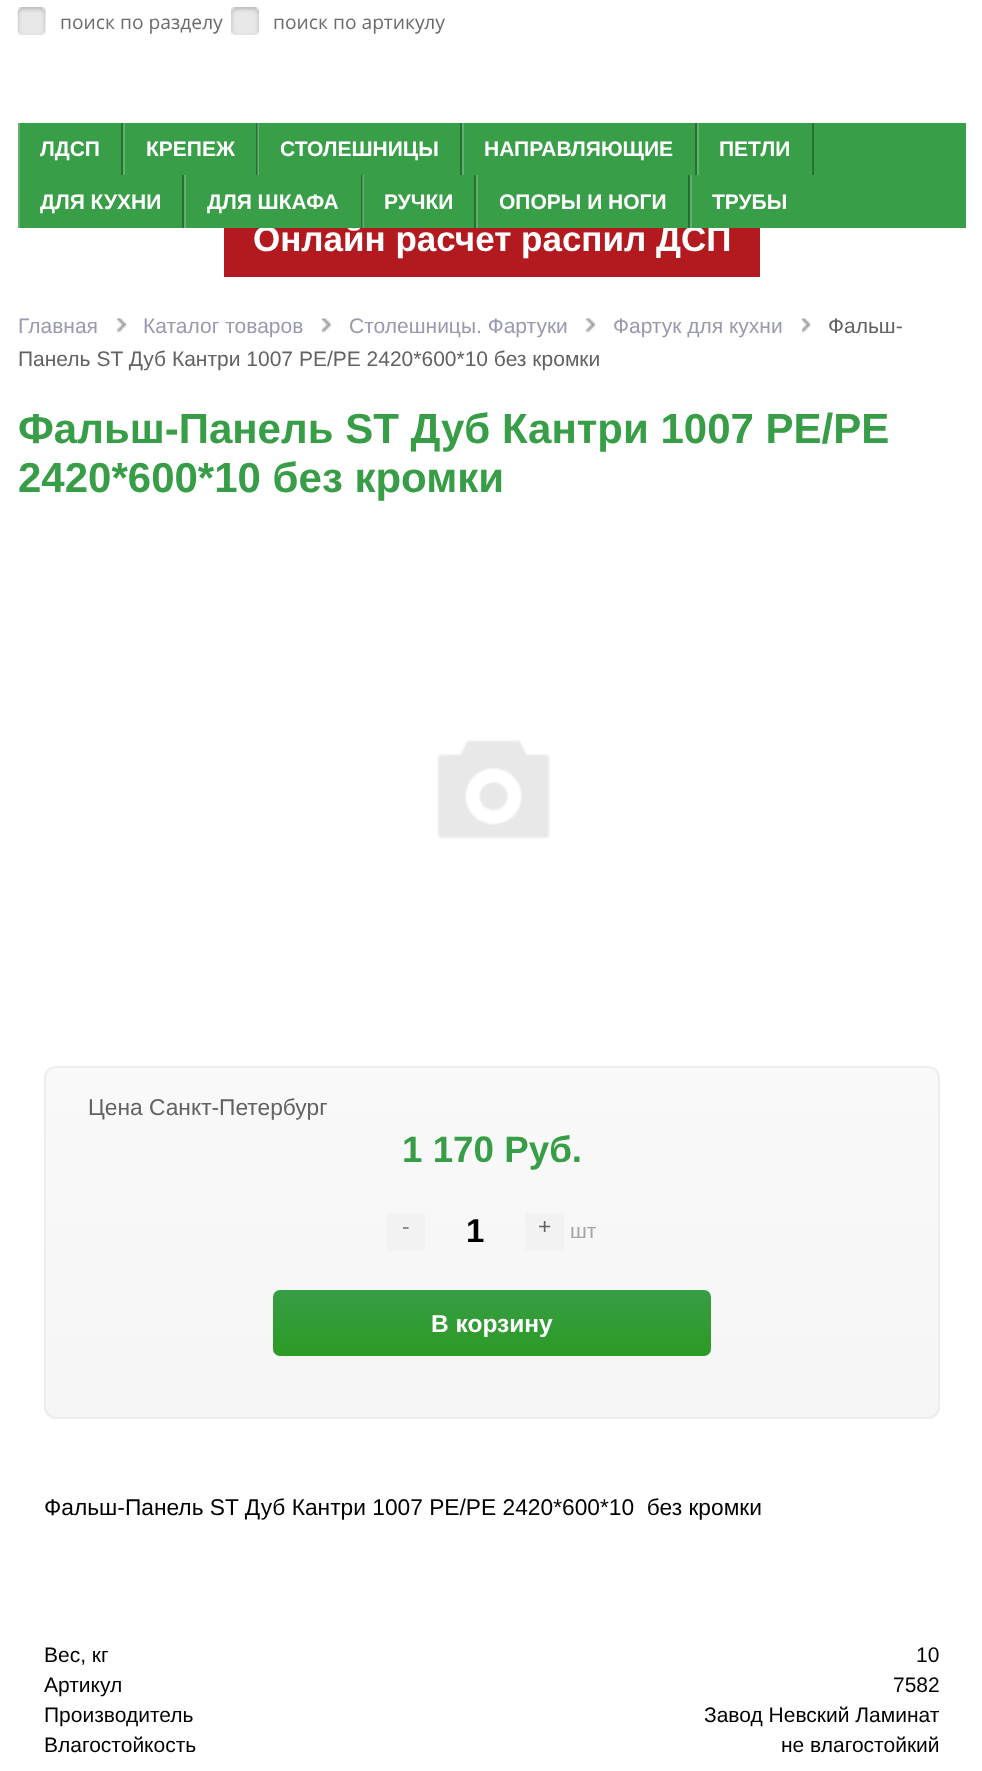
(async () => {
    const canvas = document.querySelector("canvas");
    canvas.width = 982;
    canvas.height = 1771;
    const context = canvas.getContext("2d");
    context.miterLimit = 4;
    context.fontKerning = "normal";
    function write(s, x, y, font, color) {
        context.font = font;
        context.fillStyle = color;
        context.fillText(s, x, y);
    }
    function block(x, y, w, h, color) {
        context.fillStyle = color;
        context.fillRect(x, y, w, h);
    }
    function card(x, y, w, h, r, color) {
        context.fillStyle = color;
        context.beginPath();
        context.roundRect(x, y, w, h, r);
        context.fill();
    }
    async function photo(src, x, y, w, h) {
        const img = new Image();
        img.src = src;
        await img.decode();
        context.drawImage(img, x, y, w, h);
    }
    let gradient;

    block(0, 0, 982, 1771, "rgb(255, 255, 255)");
    await photo("media/1.png", 17, 7, 29, 28);
    write("поиск по разделу", 60, 29, "19.25px Open Sans", "rgb(107, 107, 107)");
    await photo("media/2.png", 231, 7, 28, 28);
    write("поиск по артикулу", 273, 29, "19.25px Open Sans", "rgb(107, 107, 107)");
    block(224, 228, 536, 49, "rgb(178, 26, 32)");
    write("Онлайн расчет распил ДСП", 253, 251, "bold 35px Liberation Sans", "rgb(255, 255, 255)");
    block(20, 123, 946, 105, "rgb(56, 158, 72)");
    block(121, 123, 2, 52, "rgb(39, 111, 50)");
    block(18, 123, 2, 105, "rgb(96, 177, 109)");
    write("ЛДСП", 40, 156, "bold 21px Liberation Sans", "rgb(255, 255, 255)");
    block(256, 123, 2, 52, "rgb(39, 111, 50)");
    block(123, 123, 2, 52, "rgb(96, 177, 109)");
    write("КРЕПЕЖ", 146, 156, "bold 21px Liberation Sans", "rgb(255, 255, 255)");
    block(460, 123, 2, 52, "rgb(39, 111, 50)");
    block(257, 123, 2, 52, "rgba(255, 255, 255, 0.2)");
    write("СТОЛЕШНИЦЫ", 280, 156, "bold 21px Liberation Sans", "rgb(255, 255, 255)");
    block(695, 123, 2, 52, "rgb(39, 111, 50)");
    block(462, 123, 2, 52, "rgb(96, 177, 109)");
    write("НАПРАВЛЯЮЩИЕ", 484, 156, "bold 21px Liberation Sans", "rgb(255, 255, 255)");
    block(812, 123, 2, 52, "rgb(39, 111, 50)");
    block(697, 123, 2, 52, "rgb(96, 177, 109)");
    write("ПЕТЛИ", 719, 156, "bold 21px Liberation Sans", "rgb(255, 255, 255)");
    block(182, 175, 2, 53, "rgb(39, 111, 50)");
    write("ДЛЯ КУХНИ", 40, 209, "bold 21px Liberation Sans", "rgb(255, 255, 255)");
    block(361, 175, 2, 53, "rgb(39, 111, 50)");
    block(184, 175, 2, 53, "rgb(96, 177, 109)");
    write("ДЛЯ ШКАФА", 207, 209, "bold 21px Liberation Sans", "rgb(255, 255, 255)");
    block(474, 175, 2, 53, "rgb(39, 111, 50)");
    block(362, 175, 2, 53, "rgba(255, 255, 255, 0.2)");
    write("РУЧКИ", 384, 209, "bold 21px Liberation Sans", "rgb(255, 255, 255)");
    block(688, 175, 2, 53, "rgb(39, 111, 50)");
    block(476, 175, 2, 53, "rgb(96, 177, 109)");
    write("ОПОРЫ И НОГИ", 499, 209, "bold 21px Liberation Sans", "rgb(255, 255, 255)");
    block(690, 175, 2, 53, "rgb(96, 177, 109)");
    write("ТРУБЫ", 712, 209, "bold 21px Liberation Sans", "rgb(255, 255, 255)");
    write("Главная", 18, 333, "21px Liberation Sans", "rgb(153, 153, 175)");
    await photo("media/3.png", 117, 318, 9, 15);
    write("Каталог товаров", 143, 333, "21px Liberation Sans", "rgb(153, 153, 175)");
    await photo("media/4.png", 322, 318, 9, 15);
    write("Столешницы. Фартуки", 349, 333, "21px Liberation Sans", "rgb(153, 153, 175)");
    await photo("media/3.png", 586, 318, 9, 15);
    write("Фартук для кухни", 613, 333, "21px Liberation Sans", "rgb(153, 153, 175)");
    await photo("media/5.png", 802, 318, 9, 15);
    write("Фальш-", 828, 333, "21px Liberation Sans", "rgb(99, 98, 98)");
    write("Панель ST Дуб Кантри 1007 PE/PE 2420*600*10 без кромки", 18, 366, "21px Liberation Sans", "rgb(99, 98, 98)");
    write("Фальш-Панель ST Дуб Кантри 1007 PE/PE", 18, 443, "bold 42px Liberation Sans", "rgb(55, 157, 70)");
    write("2420*600*10 без кромки", 18, 492, "bold 42px Liberation Sans", "rgb(55, 157, 70)");
    await photo("media/6.png", 437, 740, 113, 99);
    context.save();
    context.beginPath();
    context.roundRect(44, 1066, 896, 353, 12);
    context.clip();
    gradient = context.createLinearGradient(492, 1068, 492, 1418);
    gradient.addColorStop(0, "rgb(250, 249, 249)");
    gradient.addColorStop(1, "rgb(245, 245, 245)");
    context.fillStyle = gradient;
    context.fillRect(44, 1068, 896, 350);
    context.restore();
    context.beginPath();
    context.roundRect(45, 1067, 894, 351, 11);
    context.strokeStyle = "rgb(237, 237, 237)";
    context.lineWidth = 2;
    context.stroke();
    write("Цена Санкт-Петербург", 88, 1115, "22.75px Liberation Sans", "rgb(99, 98, 98)");
    write("1 170 Руб.", 402, 1162, "bold 36.75px Liberation Sans", "rgb(55, 157, 70)");
    card(387, 1213, 38, 38, 4, "rgb(242, 242, 242)");
    write("-", 402, 1234, "22.75px Liberation Sans", "rgb(129, 129, 129)");
    write("1", 466, 1242, "bold 33px Liberation Sans", "rgb(0, 0, 0)");
    card(525, 1213, 39, 38, 4, "rgb(242, 242, 242)");
    write("+", 538, 1234, "22.75px Liberation Sans", "rgb(99, 98, 98)");
    write("шт", 570, 1238, "21px Liberation Sans", "rgb(165, 165, 165)");
    gradient = context.createLinearGradient(492, 1290, 492, 1356);
    gradient.addColorStop(0, "rgb(55, 157, 70)");
    gradient.addColorStop(1, "rgb(44, 155, 36)");
    context.fillStyle = gradient;
    context.beginPath();
    context.roundRect(273, 1290, 438, 66, 7);
    context.fill();
    write("В корзину", 431, 1332, "bold 24.5px Liberation Sans", "rgb(255, 255, 255)");
    write("Фальш-Панель ST Дуб Кантри 1007 PE/PE 2420*600*10  без кромки", 44, 1515, "22.75px Liberation Sans", "rgb(0, 0, 0)");
    write("Вес, кг", 44, 1662, "21px Liberation Sans", "rgb(0, 0, 0)");
    write("10", 916, 1662, "21px Liberation Sans", "rgb(0, 0, 0)");
    write("Артикул", 44, 1692, "21px Liberation Sans", "rgb(0, 0, 0)");
    write("7582", 893, 1692, "21px Liberation Sans", "rgb(0, 0, 0)");
    write("Производитель", 44, 1722, "21px Liberation Sans", "rgb(0, 0, 0)");
    write("Завод Невский Ламинат", 704, 1722, "21px Liberation Sans", "rgb(0, 0, 0)");
    write("Влагостойкость", 44, 1752, "21px Liberation Sans", "rgb(0, 0, 0)");
    write("не влагостойкий", 781, 1752, "21px Liberation Sans", "rgb(0, 0, 0)");
})();
